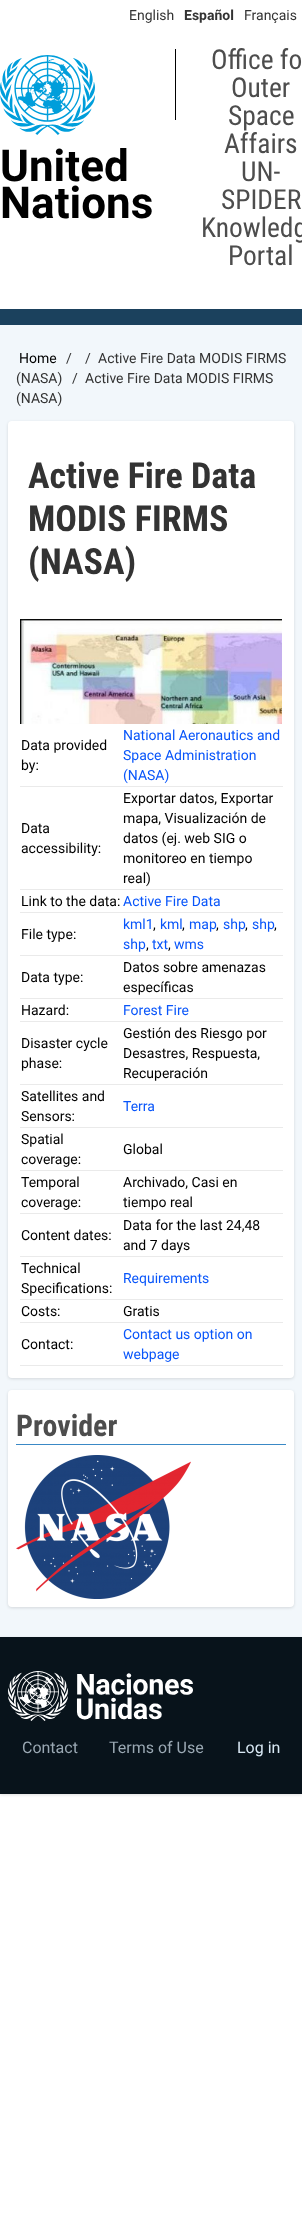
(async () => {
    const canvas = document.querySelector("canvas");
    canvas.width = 302;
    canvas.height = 2223;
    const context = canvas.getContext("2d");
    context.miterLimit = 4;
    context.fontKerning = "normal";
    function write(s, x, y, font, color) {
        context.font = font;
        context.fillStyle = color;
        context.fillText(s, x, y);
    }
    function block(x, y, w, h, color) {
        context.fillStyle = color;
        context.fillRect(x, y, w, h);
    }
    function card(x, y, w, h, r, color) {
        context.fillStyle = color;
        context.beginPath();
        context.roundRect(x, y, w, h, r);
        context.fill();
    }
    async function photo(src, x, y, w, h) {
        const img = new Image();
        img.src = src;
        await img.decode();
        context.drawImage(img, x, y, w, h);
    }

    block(0, 0, 302, 2223, "rgb(255, 255, 255)");
    write("English", 129, 20, "14px Roboto", "rgb(51, 51, 51)");
    write("Español", 184, 20, "bold 14px Roboto", "rgb(51, 51, 51)");
    write("Français", 244, 20, "14px Roboto", "rgb(51, 51, 51)");
    block(175, 49, 1, 71, "rgb(0, 0, 0)");
    write("Office fo", 211, 69, "27.5px Roboto Condensed", "rgb(77, 77, 77)");
    write("Outer", 231, 97, "27.5px Roboto Condensed", "rgb(77, 77, 77)");
    write("Space", 228, 125, "27.5px Roboto Condensed", "rgb(77, 77, 77)");
    write("Affairs", 224, 153, "27.5px Roboto Condensed", "rgb(77, 77, 77)");
    write("UN-", 241, 181, "27.5px Roboto Condensed", "rgb(77, 77, 77)");
    write("SPIDER", 221, 209, "27.5px Roboto Condensed", "rgb(77, 77, 77)");
    write("Knowledg", 201, 237, "27.5px Roboto Condensed", "rgb(77, 77, 77)");
    write("Portal", 228, 265, "27.5px Roboto Condensed", "rgb(77, 77, 77)");
    await photo("media/1.png", 0, 55, 95, 80);
    write("United", 0, 181, "bold 44px Roboto", "rgb(0, 0, 0)");
    write("Nations", 0, 218, "bold 44px Roboto", "rgb(0, 0, 0)");
    block(0, 309, 302, 16, "rgb(27, 65, 93)");
    block(0, 325, 302, 1312, "rgb(242, 247, 251)");
    write("Home", 19, 363, "14px Roboto", "rgb(0, 0, 0)");
    write("/", 66, 363, "14px Roboto", "rgb(51, 51, 51)");
    write("/", 85, 363, "14px Roboto", "rgb(51, 51, 51)");
    write("Active Fire Data MODIS FIRMS", 98, 363, "14px Roboto", "rgb(51, 51, 51)");
    write("(NASA)", 16, 383, "14px Roboto", "rgb(51, 51, 51)");
    write("/", 72, 383, "14px Roboto", "rgb(51, 51, 51)");
    write("Active Fire Data MODIS FIRMS", 85, 383, "14px Roboto", "rgb(51, 51, 51)");
    write("(NASA)", 16, 403, "14px Roboto", "rgb(51, 51, 51)");
    context.fillStyle = "rgba(0, 0, 0, 0.12)";
    context.filter = "blur(1.5px)";
    context.beginPath();
    context.roundRect(8, 422, 286, 957, 4);
    context.fill();
    context.filter = "none";
    card(8, 421, 286, 957, 4, "rgb(255, 255, 255)");
    write("Active Fire Data", 28, 488, "bold 36px Roboto Condensed", "rgb(51, 51, 51)");
    write("MODIS FIRMS", 28, 531, "bold 36px Roboto Condensed", "rgb(51, 51, 51)");
    write("(NASA)", 28, 574, "bold 36px Roboto Condensed", "rgb(51, 51, 51)");
    await photo("media/2.png", 20, 619, 262, 105);
    block(20, 786, 263, 1, "rgb(234, 234, 234)");
    write("Data provided", 21, 750, "14px Roboto", "rgb(0, 0, 0)");
    write("by:", 21, 770, "14px Roboto", "rgb(0, 0, 0)");
    write("National Aeronautics and", 123, 740, "14px Roboto", "rgb(8, 85, 250)");
    write("Space Administration", 123, 760, "14px Roboto", "rgb(8, 85, 250)");
    write("(NASA)", 123, 780, "14px Roboto", "rgb(8, 85, 250)");
    block(20, 889, 263, 1, "rgb(234, 234, 234)");
    write("Data", 21, 833, "14px Roboto", "rgb(0, 0, 0)");
    write("accessibility:", 21, 853, "14px Roboto", "rgb(0, 0, 0)");
    write("Exportar datos, Exportar", 123, 803, "14px Roboto", "rgb(0, 0, 0)");
    write("mapa, Visualización de", 123, 823, "14px Roboto", "rgb(0, 0, 0)");
    write("datos (ej. web SIG o", 123, 843, "14px Roboto", "rgb(0, 0, 0)");
    write("monitoreo en tiempo", 123, 863, "14px Roboto", "rgb(0, 0, 0)");
    write("real)", 123, 883, "14px Roboto", "rgb(0, 0, 0)");
    block(20, 912, 263, 1, "rgb(234, 234, 234)");
    write("Link to the data:", 21, 906, "14px Roboto", "rgb(0, 0, 0)");
    write("Active Fire Data", 123, 906, "14px Roboto", "rgb(8, 85, 250)");
    block(20, 955, 263, 1, "rgb(234, 234, 234)");
    write("File type:", 21, 939, "14px Roboto", "rgb(0, 0, 0)");
    write("kml1", 123, 929, "14px Roboto", "rgb(8, 85, 250)");
    write(",", 153, 929, "14px Roboto", "rgb(0, 0, 0)");
    write("kml", 160, 929, "14px Roboto", "rgb(8, 85, 250)");
    write(",", 182, 929, "14px Roboto", "rgb(0, 0, 0)");
    write("map", 189, 929, "14px Roboto", "rgb(8, 85, 250)");
    write(",", 216, 929, "14px Roboto", "rgb(0, 0, 0)");
    write("shp", 223, 929, "14px Roboto", "rgb(8, 85, 250)");
    write(",", 245, 929, "14px Roboto", "rgb(0, 0, 0)");
    write("shp", 252, 929, "14px Roboto", "rgb(8, 85, 250)");
    write(",", 274, 929, "14px Roboto", "rgb(0, 0, 0)");
    write("shp", 123, 949, "14px Roboto", "rgb(8, 85, 250)");
    write(",", 146, 949, "14px Roboto", "rgb(0, 0, 0)");
    write("txt", 152, 949, "14px Roboto", "rgb(8, 85, 250)");
    write(",", 168, 949, "14px Roboto", "rgb(0, 0, 0)");
    write("wms", 174, 949, "14px Roboto", "rgb(8, 85, 250)");
    block(20, 998, 263, 1, "rgb(234, 234, 234)");
    write("Data type:", 21, 982, "14px Roboto", "rgb(0, 0, 0)");
    write("Datos sobre amenazas", 123, 972, "14px Roboto", "rgb(0, 0, 0)");
    write("específicas", 123, 992, "14px Roboto", "rgb(0, 0, 0)");
    block(20, 1021, 263, 1, "rgb(234, 234, 234)");
    write("Hazard:", 21, 1015, "14px Roboto", "rgb(0, 0, 0)");
    write("Forest Fire", 123, 1015, "14px Roboto", "rgb(8, 85, 250)");
    block(20, 1084, 263, 1, "rgb(234, 234, 234)");
    write("Disaster cycle", 21, 1048, "14px Roboto", "rgb(0, 0, 0)");
    write("phase:", 21, 1068, "14px Roboto", "rgb(0, 0, 0)");
    write("Gestión des Riesgo por", 123, 1038, "14px Roboto", "rgb(0, 0, 0)");
    write("Desastres, Respuesta,", 123, 1058, "14px Roboto", "rgb(0, 0, 0)");
    write("Recuperación", 123, 1078, "14px Roboto", "rgb(0, 0, 0)");
    block(20, 1127, 263, 1, "rgb(234, 234, 234)");
    write("Satellites and", 21, 1101, "14px Roboto", "rgb(0, 0, 0)");
    write("Sensors:", 21, 1121, "14px Roboto", "rgb(0, 0, 0)");
    write("Terra", 123, 1111, "14px Roboto", "rgb(8, 85, 250)");
    block(20, 1170, 263, 1, "rgb(234, 234, 234)");
    write("Spatial", 21, 1144, "14px Roboto", "rgb(0, 0, 0)");
    write("coverage:", 21, 1164, "14px Roboto", "rgb(0, 0, 0)");
    write("Global", 123, 1154, "14px Roboto", "rgb(0, 0, 0)");
    block(20, 1213, 263, 1, "rgb(234, 234, 234)");
    write("Temporal", 21, 1187, "14px Roboto", "rgb(0, 0, 0)");
    write("coverage:", 21, 1207, "14px Roboto", "rgb(0, 0, 0)");
    write("Archivado, Casi en", 123, 1187, "14px Roboto", "rgb(0, 0, 0)");
    write("tiempo real", 123, 1207, "14px Roboto", "rgb(0, 0, 0)");
    block(20, 1256, 263, 1, "rgb(234, 234, 234)");
    write("Content dates:", 21, 1240, "14px Roboto", "rgb(0, 0, 0)");
    write("Data for the last 24,48", 123, 1230, "14px Roboto", "rgb(0, 0, 0)");
    write("and 7 days", 123, 1250, "14px Roboto", "rgb(0, 0, 0)");
    block(20, 1299, 263, 1, "rgb(234, 234, 234)");
    write("Technical", 21, 1273, "14px Roboto", "rgb(0, 0, 0)");
    write("Specifications:", 21, 1293, "14px Roboto", "rgb(0, 0, 0)");
    write("Requirements", 123, 1283, "14px Roboto", "rgb(8, 85, 250)");
    block(20, 1322, 263, 1, "rgb(234, 234, 234)");
    write("Costs:", 21, 1316, "14px Roboto", "rgb(0, 0, 0)");
    write("Gratis", 123, 1316, "14px Roboto", "rgb(0, 0, 0)");
    block(20, 1365, 263, 1, "rgb(234, 234, 234)");
    write("Contact:", 21, 1349, "14px Roboto", "rgb(0, 0, 0)");
    write("Contact us option on", 123, 1339, "14px Roboto", "rgb(8, 85, 250)");
    write("webpage", 123, 1359, "14px Roboto", "rgb(8, 85, 250)");
    context.fillStyle = "rgba(0, 0, 0, 0.12)";
    context.filter = "blur(1.5px)";
    context.beginPath();
    context.roundRect(8, 1391, 286, 217, 4);
    context.fill();
    context.filter = "none";
    card(8, 1390, 286, 217, 4, "rgb(255, 255, 255)");
    block(16, 1444, 270, 1, "rgb(58, 137, 198)");
    write("Provider", 16, 1436, "bold 30px Roboto Condensed", "rgb(77, 77, 77)");
    await photo("media/3.png", 16, 1455, 175, 144);
    context.fillStyle = "rgba(0, 0, 0, 0.12)";
    context.filter = "blur(1.5px)";
    context.beginPath();
    context.rect(0, 1638, 302, 157);
    context.fill();
    context.filter = "none";
    block(0, 1637, 302, 157, "rgb(8, 19, 27)");
    await photo("media/4.png", 8, 1671, 185, 50);
    write("Contact", 22, 1753, "16px Roboto", "rgb(154, 168, 179)");
    write("Terms of Use", 109, 1753, "16px Roboto", "rgb(154, 168, 179)");
    write("Log in", 237, 1753, "16px Roboto", "rgb(216, 232, 244)");
})();
